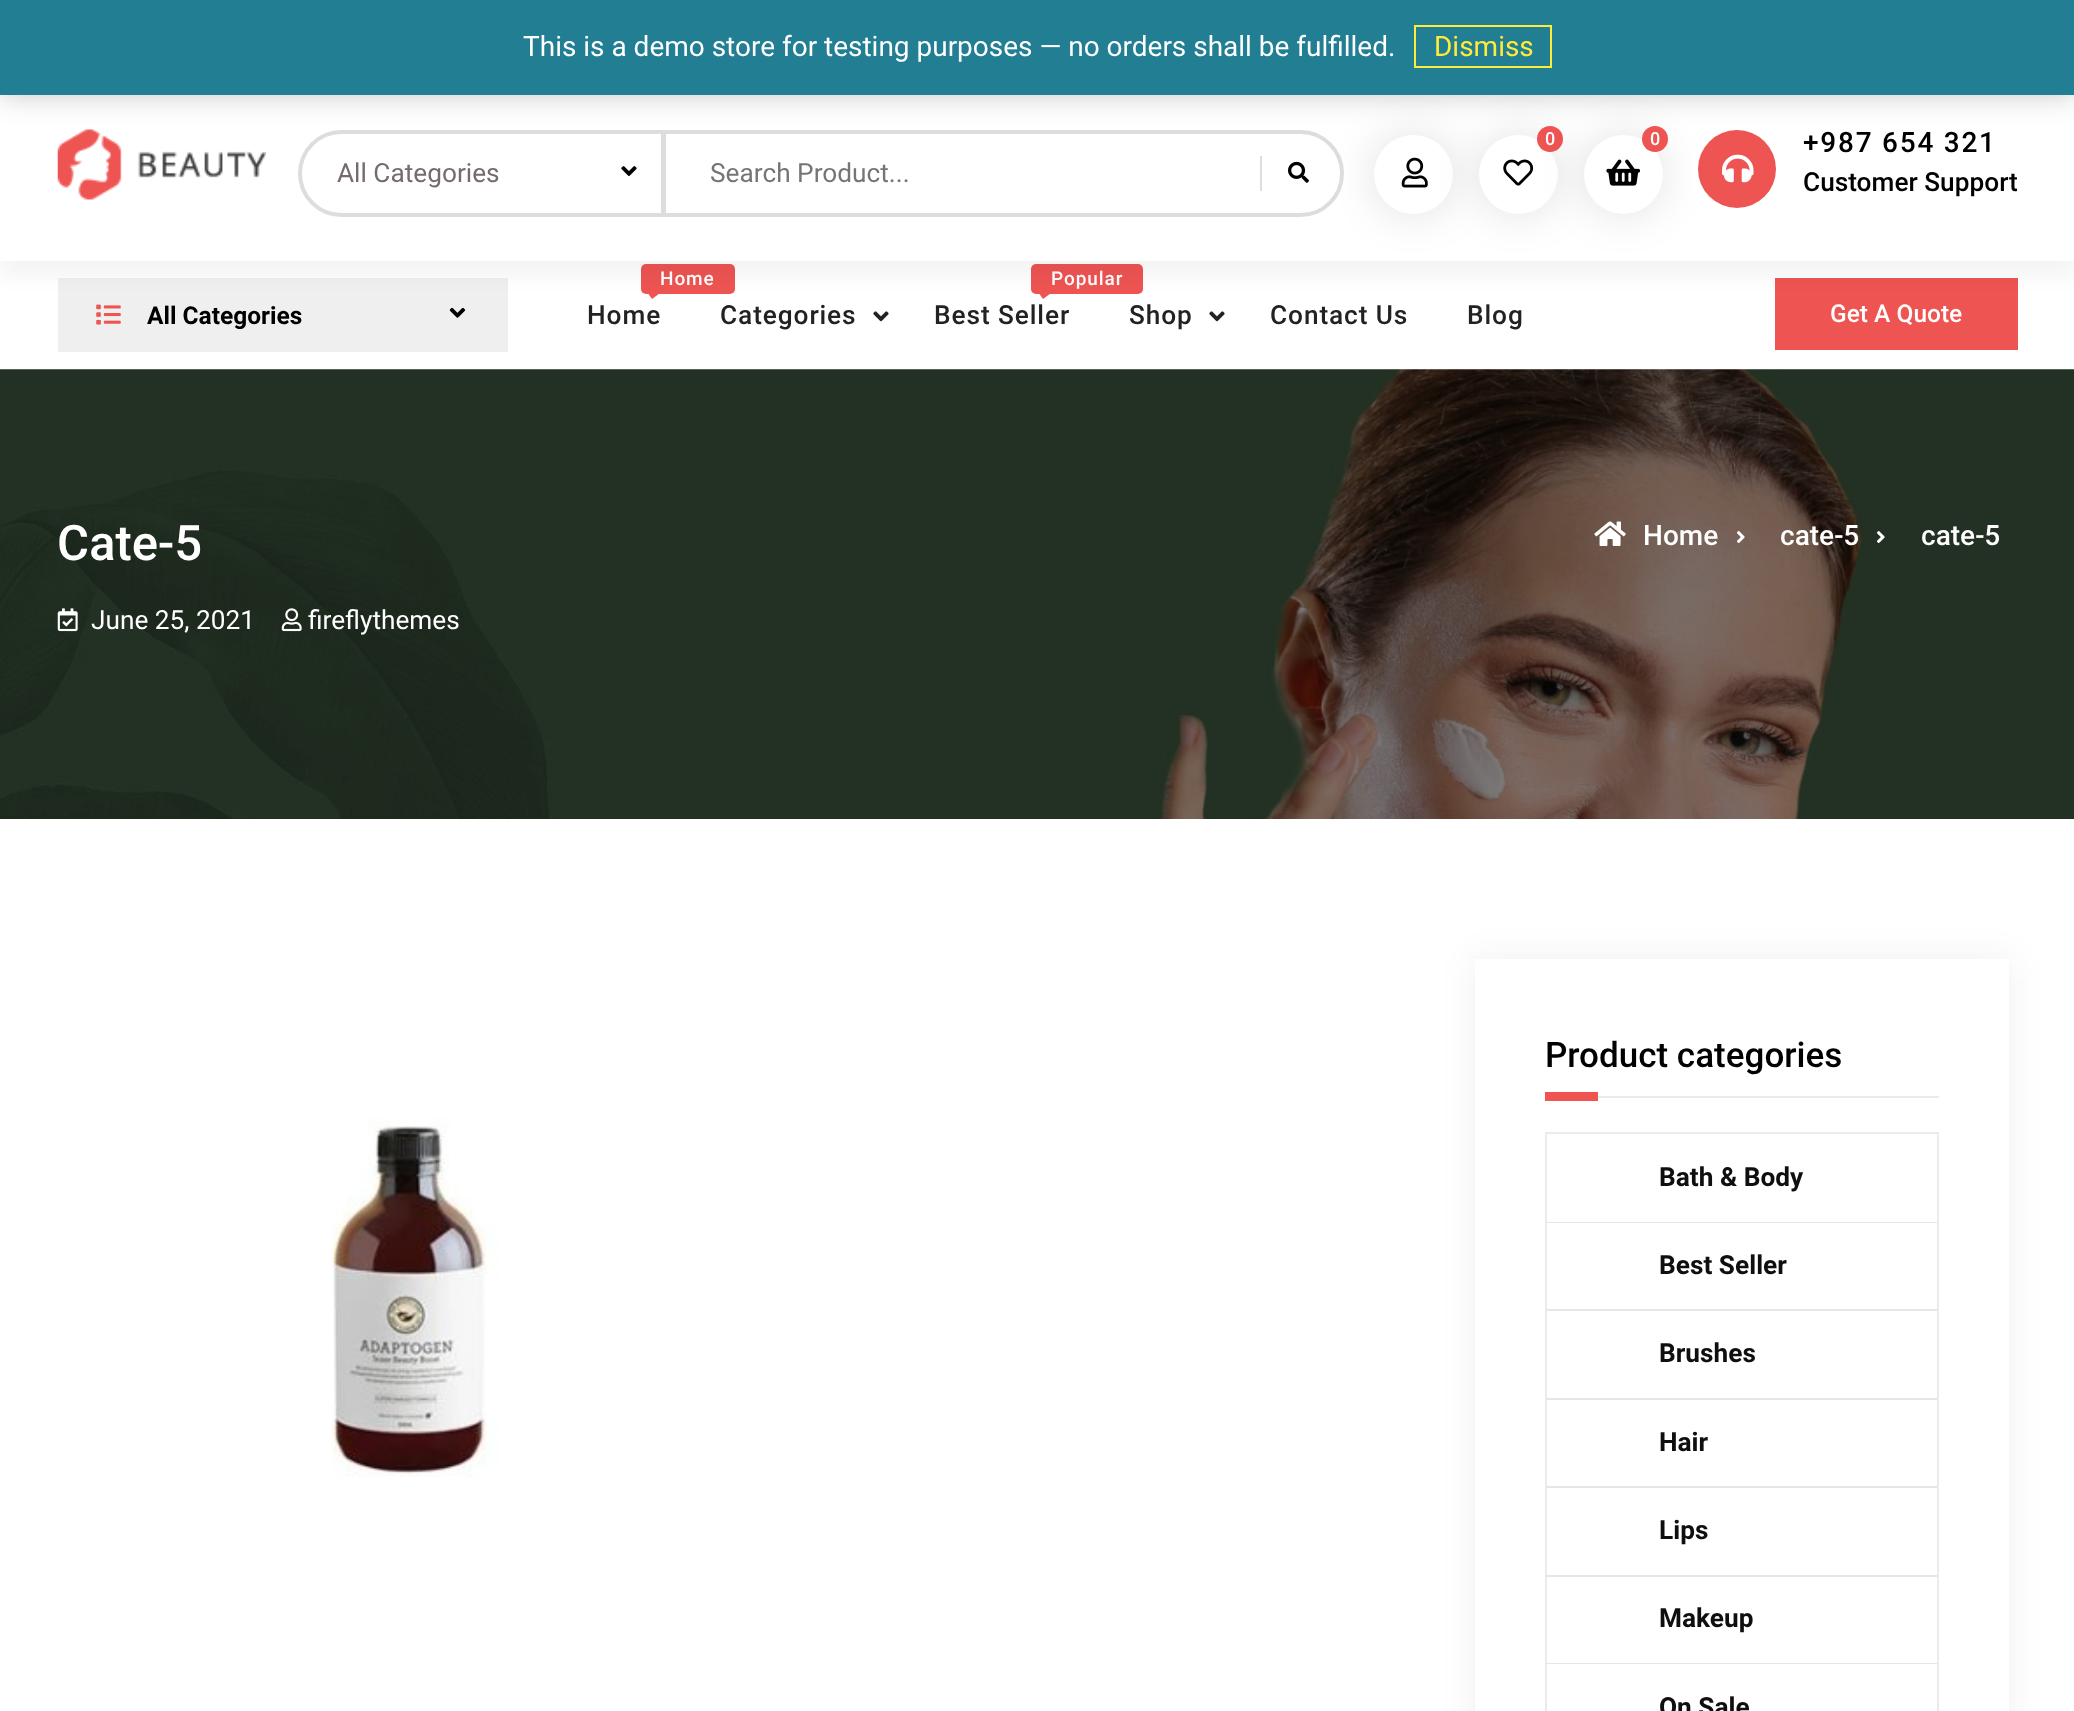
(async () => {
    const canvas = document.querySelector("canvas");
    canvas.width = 2074;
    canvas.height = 1711;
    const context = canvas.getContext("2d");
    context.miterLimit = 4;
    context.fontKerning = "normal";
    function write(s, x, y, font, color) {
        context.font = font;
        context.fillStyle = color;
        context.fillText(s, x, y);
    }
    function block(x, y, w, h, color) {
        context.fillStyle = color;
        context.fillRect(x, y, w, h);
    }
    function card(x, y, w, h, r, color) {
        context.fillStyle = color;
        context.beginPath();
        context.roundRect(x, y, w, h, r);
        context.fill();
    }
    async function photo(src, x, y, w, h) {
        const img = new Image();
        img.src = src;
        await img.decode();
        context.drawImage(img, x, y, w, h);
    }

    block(0, 0, 2074, 1711, "rgb(255, 255, 255)");
    block(58, 278, 450, 74, "rgb(239, 239, 239)");
    await photo("media/8.png", 96, 304, 25, 21);
    card(641, 264, 94, 30, 5, "rgb(238, 84, 82)");
    context.letterSpacing = "0.9px";
    write("Home", 660, 285, "500 19px Roboto", "rgb(255, 255, 255)");
    context.fillStyle = "rgb(238, 84, 82)";
    context.beginPath();
    context.moveTo(657.5, 282);
    context.lineTo(663.5, 290.5);
    context.lineTo(652, 299);
    context.lineTo(646, 290.5);
    context.closePath();
    context.fill();
    card(1031, 264, 112, 30, 5, "rgb(238, 84, 82)");
    write("Popular", 1051, 285, "500 19px Roboto", "rgb(255, 255, 255)");
    context.fillStyle = "rgb(238, 84, 82)";
    context.beginPath();
    context.moveTo(1048, 282);
    context.lineTo(1054.5, 290.5);
    context.lineTo(1043, 299);
    context.lineTo(1037, 290.5);
    context.closePath();
    context.fill();
    block(1775, 278, 243, 72, "rgb(238, 84, 82)");
    context.fillStyle = "rgba(0, 0, 0, 0.04)";
    context.filter = "blur(9px)";
    context.beginPath();
    context.rect(0, 103, 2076, 175);
    context.fill();
    context.filter = "none";
    block(0, 97, 2074, 164, "rgb(255, 255, 255)");
    await photo("media/1.png", 57, 129, 209, 71);
    context.fillStyle = "rgba(0, 0, 0, 0.12)";
    context.filter = "blur(22px)";
    context.beginPath();
    context.roundRect(1374, 135, 79, 79, 39.5);
    context.fill();
    context.filter = "none";
    context.fillStyle = "rgb(255, 255, 255)";
    context.beginPath();
    context.arc(1413.5, 174.5, 39.5, 0, Math.PI * 2);
    context.fill();
    await photo("media/2.png", 1401, 157, 27, 31);
    context.fillStyle = "rgba(0, 0, 0, 0.12)";
    context.filter = "blur(22px)";
    context.beginPath();
    context.roundRect(1479, 135, 79, 79, 39.5);
    context.fill();
    context.filter = "none";
    context.fillStyle = "rgb(255, 255, 255)";
    context.beginPath();
    context.arc(1518.5, 174.5, 39.5, 0, Math.PI * 2);
    context.fill();
    context.fillStyle = "rgb(238, 84, 82)";
    context.beginPath();
    context.arc(1550, 139, 13, 0, Math.PI * 2);
    context.fill();
    await photo("media/3.png", 1503, 159, 31, 27);
    context.beginPath();
    context.arc(1737, 169, 39, 0, Math.PI * 2);
    context.fill();
    await photo("media/5.png", 1722, 154, 32, 29);
    context.fillStyle = "rgba(0, 0, 0, 0.12)";
    context.filter = "blur(22px)";
    context.beginPath();
    context.roundRect(1584, 135, 79, 79, 39.5);
    context.fill();
    context.filter = "none";
    context.fillStyle = "rgb(255, 255, 255)";
    context.beginPath();
    context.arc(1623.5, 174.5, 39.5, 0, Math.PI * 2);
    context.fill();
    context.fillStyle = "rgb(238, 84, 82)";
    context.beginPath();
    context.arc(1655, 139, 13, 0, Math.PI * 2);
    context.fill();
    context.beginPath();
    context.roundRect(300, 132, 363, 83, [41.5, 0, 0, 41.5]);
    context.strokeStyle = "rgb(222, 221, 221)";
    context.lineWidth = 4;
    context.stroke();
    context.fillStyle = "rgb(255, 255, 255)";
    context.beginPath();
    context.roundRect(664, 132, 678, 83, [0, 41.5, 41.5, 0]);
    context.fill();
    context.stroke();
    context.fillStyle = "rgba(0, 0, 0, 0.2)";
    context.filter = "blur(14px)";
    context.beginPath();
    context.rect(0, 2, 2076, 94);
    context.fill();
    context.filter = "none";
    block(0, 0, 2074, 95, "rgb(33, 126, 147)");
    context.letterSpacing = "0px";
    write("This is a demo store for testing purposes — no orders shall be fulfilled.", 523, 56, "28px Roboto", "rgb(255, 255, 255)");
    context.strokeStyle = "rgb(255, 235, 59)";
    context.lineWidth = 2;
    context.strokeRect(1415, 26, 136, 41);
    write("Dismiss", 1434, 56, "28px Roboto", "rgb(255, 235, 59)");
    write("0", 1545, 145, "500 18px Roboto", "rgb(255, 255, 255)");
    write("0", 1650, 145, "500 18px Roboto", "rgb(255, 255, 255)");
    await photo("media/4.png", 1606, 159, 34, 27);
    context.letterSpacing = "1.75px";
    write("+987 654 321", 1803, 152, "500 28px Roboto", "rgb(0, 0, 0)");
    context.letterSpacing = "0px";
    write("Customer Support", 1803, 191, "500 26.25px Roboto", "rgb(0, 0, 0)");
    write("All Categories", 337, 182, "26.25px Roboto", "rgb(117, 107, 107)");
    await photo("media/6.png", 621, 166, 16, 10);
    write("Search Product...", 710, 182, "26.25px Roboto", "rgb(117, 117, 117)");
    block(1260, 156, 2, 35, "rgb(221, 221, 221)");
    await photo("media/7.png", 1288, 161, 21, 22);
    write("All Categories", 147, 324, "bold 24.5px Roboto", "rgb(0, 0, 0)");
    await photo("media/9.png", 449, 307, 17, 11);
    context.letterSpacing = "0.9px";
    write("Home", 587, 324, "500 26.25px Roboto", "rgb(34, 34, 34)");
    write("Categories", 720, 324, "500 26.25px Roboto", "rgb(34, 34, 34)");
    await photo("media/10.png", 873, 311, 16, 11);
    write("Best Seller", 934, 324, "500 26.25px Roboto", "rgb(34, 34, 34)");
    write("Shop", 1129, 324, "500 26.25px Roboto", "rgb(34, 34, 34)");
    await photo("media/10.png", 1209, 311, 16, 11);
    write("Contact Us", 1270, 324, "500 26.25px Roboto", "rgb(34, 34, 34)");
    write("Blog", 1467, 324, "500 26.25px Roboto", "rgb(34, 34, 34)");
    context.letterSpacing = "0px";
    write("Get A Quote", 1830, 322, "500 24.5px Roboto", "rgb(255, 255, 255)");
    await photo("media/11.png", 0, 369, 2074, 450);
    write("Cate-5", 57, 560, "500 49px Roboto", "rgb(255, 255, 255)");
    await photo("media/12.png", 57, 608, 21, 24);
    write("June 25, 2021", 91, 629, "26.25px Roboto", "rgb(255, 255, 255)");
    await photo("media/13.png", 281, 608, 21, 24);
    write("fireflythemes", 308, 629, "26.25px Roboto", "rgb(255, 255, 255)");
    await photo("media/14.png", 1594, 521, 32, 25);
    write("Home", 1643, 545, "500 28px Roboto", "rgb(255, 255, 255)");
    await photo("media/15.png", 1737, 531, 8, 12);
    write("cate-5", 1780, 545, "500 28px Roboto", "rgb(255, 255, 255)");
    await photo("media/16.png", 1877, 531, 8, 12);
    write("cate-5", 1921, 545, "500 28px Roboto", "rgb(255, 255, 255)");
    await photo("media/17.png", 331, 1117, 169, 360);
    context.fillStyle = "rgba(31, 29, 29, 0.07)";
    context.filter = "blur(17.5px)";
    context.beginPath();
    context.rect(1475, 959, 534, 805);
    context.fill();
    context.filter = "none";
    block(1475, 959, 534, 752, "rgb(255, 255, 255)");
    block(1598, 1096, 341, 2, "rgb(235, 235, 235)");
    write("Product categories", 1545, 1067, "500 35px Roboto", "rgb(0, 0, 0)");
    block(1545, 1092, 53, 9, "rgb(238, 84, 82)");
    context.strokeStyle = "rgb(235, 235, 235)";
    context.strokeRect(1546, 1133, 392, 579);
    block(1547, 1222, 390, 1, "rgb(229, 229, 234)");
    write("Bath & Body", 1659, 1186, "bold 26.25px Roboto", "rgb(15, 15, 15)");
    block(1547, 1309, 390, 2, "rgb(229, 229, 234)");
    write("Best Seller", 1659, 1274, "bold 26.25px Roboto", "rgb(15, 15, 15)");
    block(1547, 1398, 390, 2, "rgb(229, 229, 234)");
    write("Brushes", 1659, 1362, "bold 26.25px Roboto", "rgb(15, 15, 15)");
    block(1547, 1486, 390, 2, "rgb(229, 229, 234)");
    write("Hair", 1659, 1451, "bold 26.25px Roboto", "rgb(15, 15, 15)");
    block(1547, 1575, 390, 2, "rgb(229, 229, 234)");
    write("Lips", 1659, 1539, "bold 26.25px Roboto", "rgb(15, 15, 15)");
    block(1547, 1663, 390, 1, "rgb(229, 229, 234)");
    write("Makeup", 1659, 1627, "bold 26.25px Roboto", "rgb(15, 15, 15)");
    write("On Sale", 1659, 1716, "bold 26.25px Roboto", "rgb(15, 15, 15)");
})();
